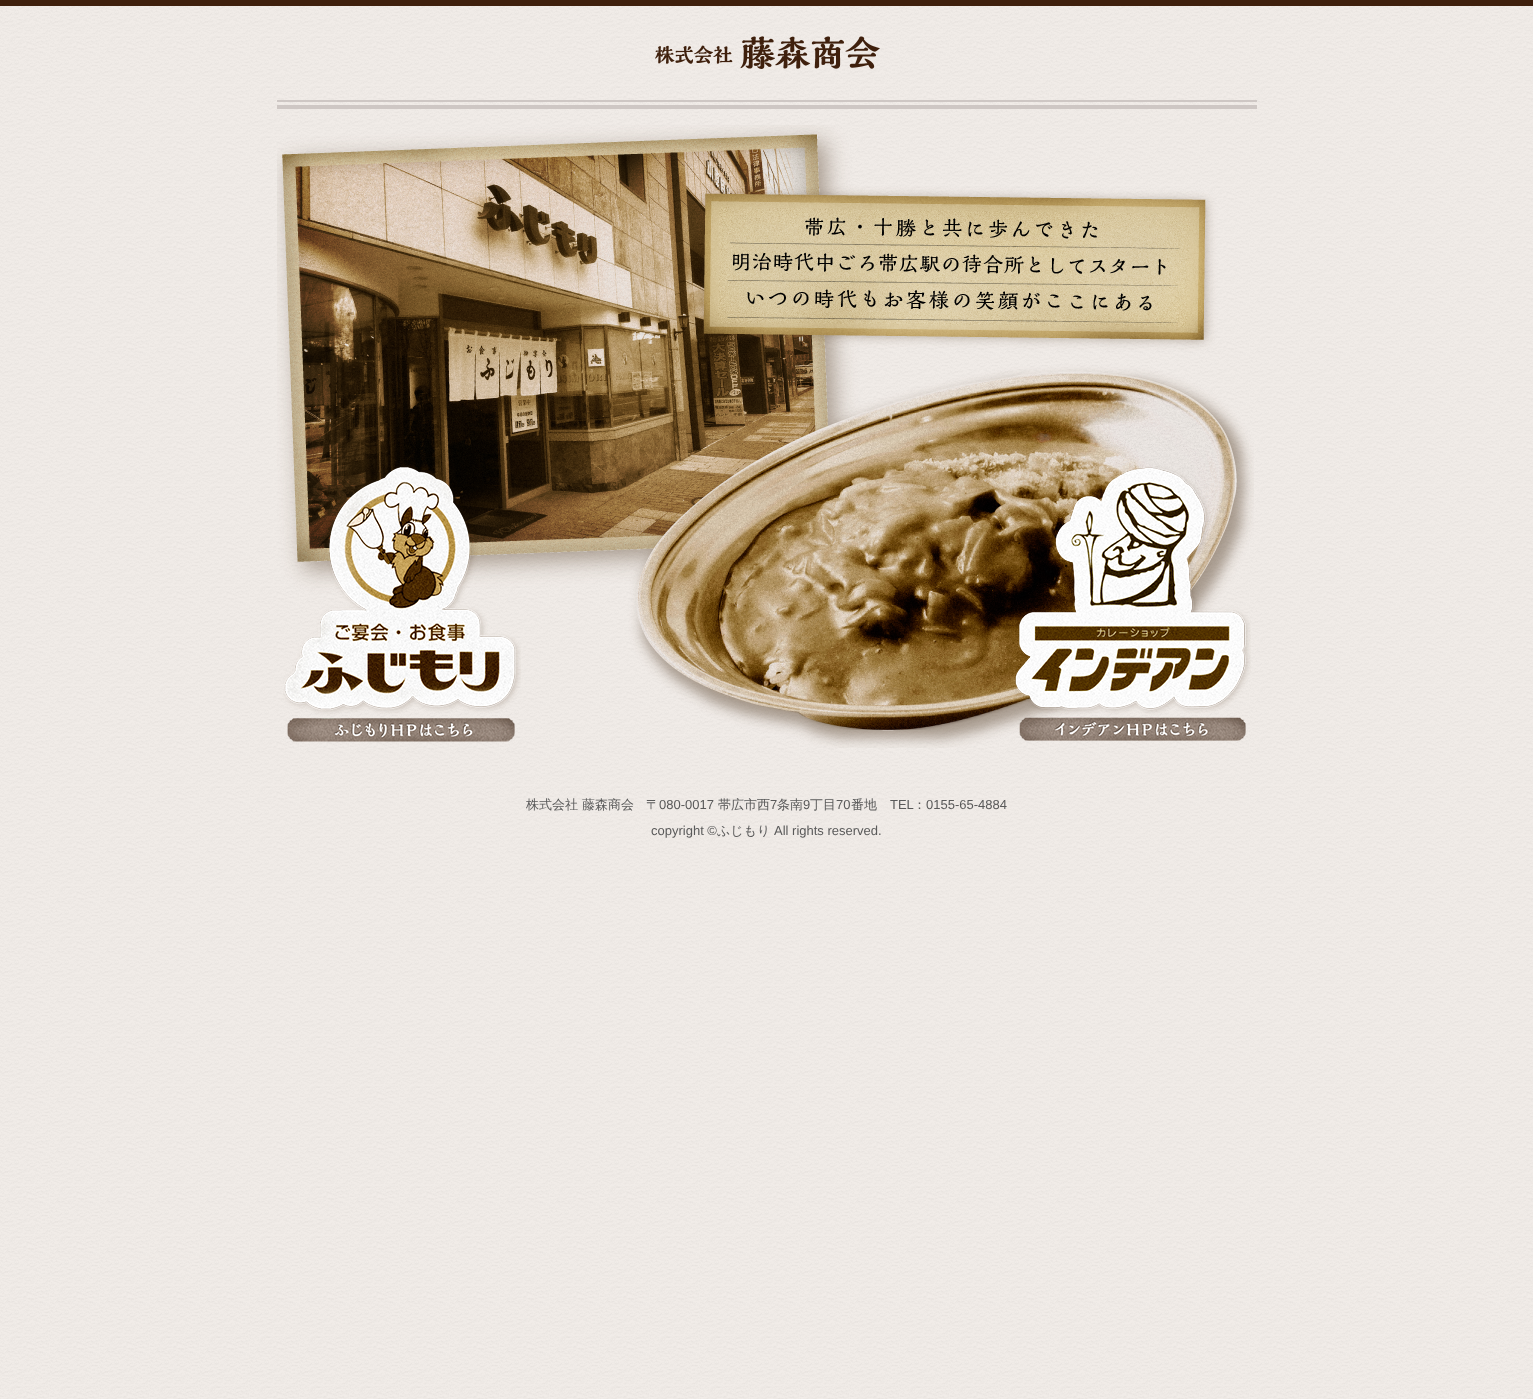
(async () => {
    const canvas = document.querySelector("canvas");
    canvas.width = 1533;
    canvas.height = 1399;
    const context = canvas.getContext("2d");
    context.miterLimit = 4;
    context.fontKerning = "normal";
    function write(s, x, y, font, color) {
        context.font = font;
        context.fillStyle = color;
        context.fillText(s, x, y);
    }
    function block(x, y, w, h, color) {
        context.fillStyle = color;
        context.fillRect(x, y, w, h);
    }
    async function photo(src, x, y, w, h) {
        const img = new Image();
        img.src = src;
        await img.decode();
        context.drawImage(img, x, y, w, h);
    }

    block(0, 0, 1533, 1399, "rgb(255, 255, 255)");
    await photo("media/1.png", 0, 6, 1533, 1393);
    block(0, 0, 1533, 6, "rgb(63, 32, 13)");
    await photo("media/2.png", 655, 36, 225, 33);
    await photo("media/3.png", 277, 100, 980, 9);
    await photo("media/4.png", 277, 125, 977, 623);
    await photo("media/5.png", 283, 467, 238, 275);
    await photo("media/6.png", 1015, 466, 236, 275);
    write("株式会社 藤森商会", 526, 809, "500 13px WenQuanYi Zen Hei", "rgb(90, 90, 90)");
    write("〒", 646, 809, "500 13px WenQuanYi Zen Hei", "rgb(90, 90, 90)");
    write("080-0017", 659, 809, "13px Liberation Sans", "rgb(90, 90, 90)");
    write("帯広市西", 718, 809, "500 13px WenQuanYi Zen Hei", "rgb(90, 90, 90)");
    write("7", 770, 809, "13px Liberation Sans", "rgb(90, 90, 90)");
    write("条南", 777, 809, "500 13px WenQuanYi Zen Hei", "rgb(90, 90, 90)");
    write("9", 803, 809, "13px Liberation Sans", "rgb(90, 90, 90)");
    write("丁目", 810, 809, "500 13px WenQuanYi Zen Hei", "rgb(90, 90, 90)");
    write("70", 836, 809, "13px Liberation Sans", "rgb(90, 90, 90)");
    write("番地", 851, 809, "500 13px WenQuanYi Zen Hei", "rgb(90, 90, 90)");
    write("TEL", 890, 809, "13px Liberation Sans", "rgb(90, 90, 90)");
    write("：", 913, 809, "500 13px WenQuanYi Zen Hei", "rgb(90, 90, 90)");
    write("0155-65-4884", 926, 809, "13px Liberation Sans", "rgb(90, 90, 90)");
    write("copyright ©", 651, 835, "13px Liberation Sans", "rgb(90, 90, 90)");
    write("ふじもり", 717, 835, "500 13px WenQuanYi Zen Hei", "rgb(90, 90, 90)");
    write("All rights reserved.", 774, 835, "13px Liberation Sans", "rgb(90, 90, 90)");
})();
